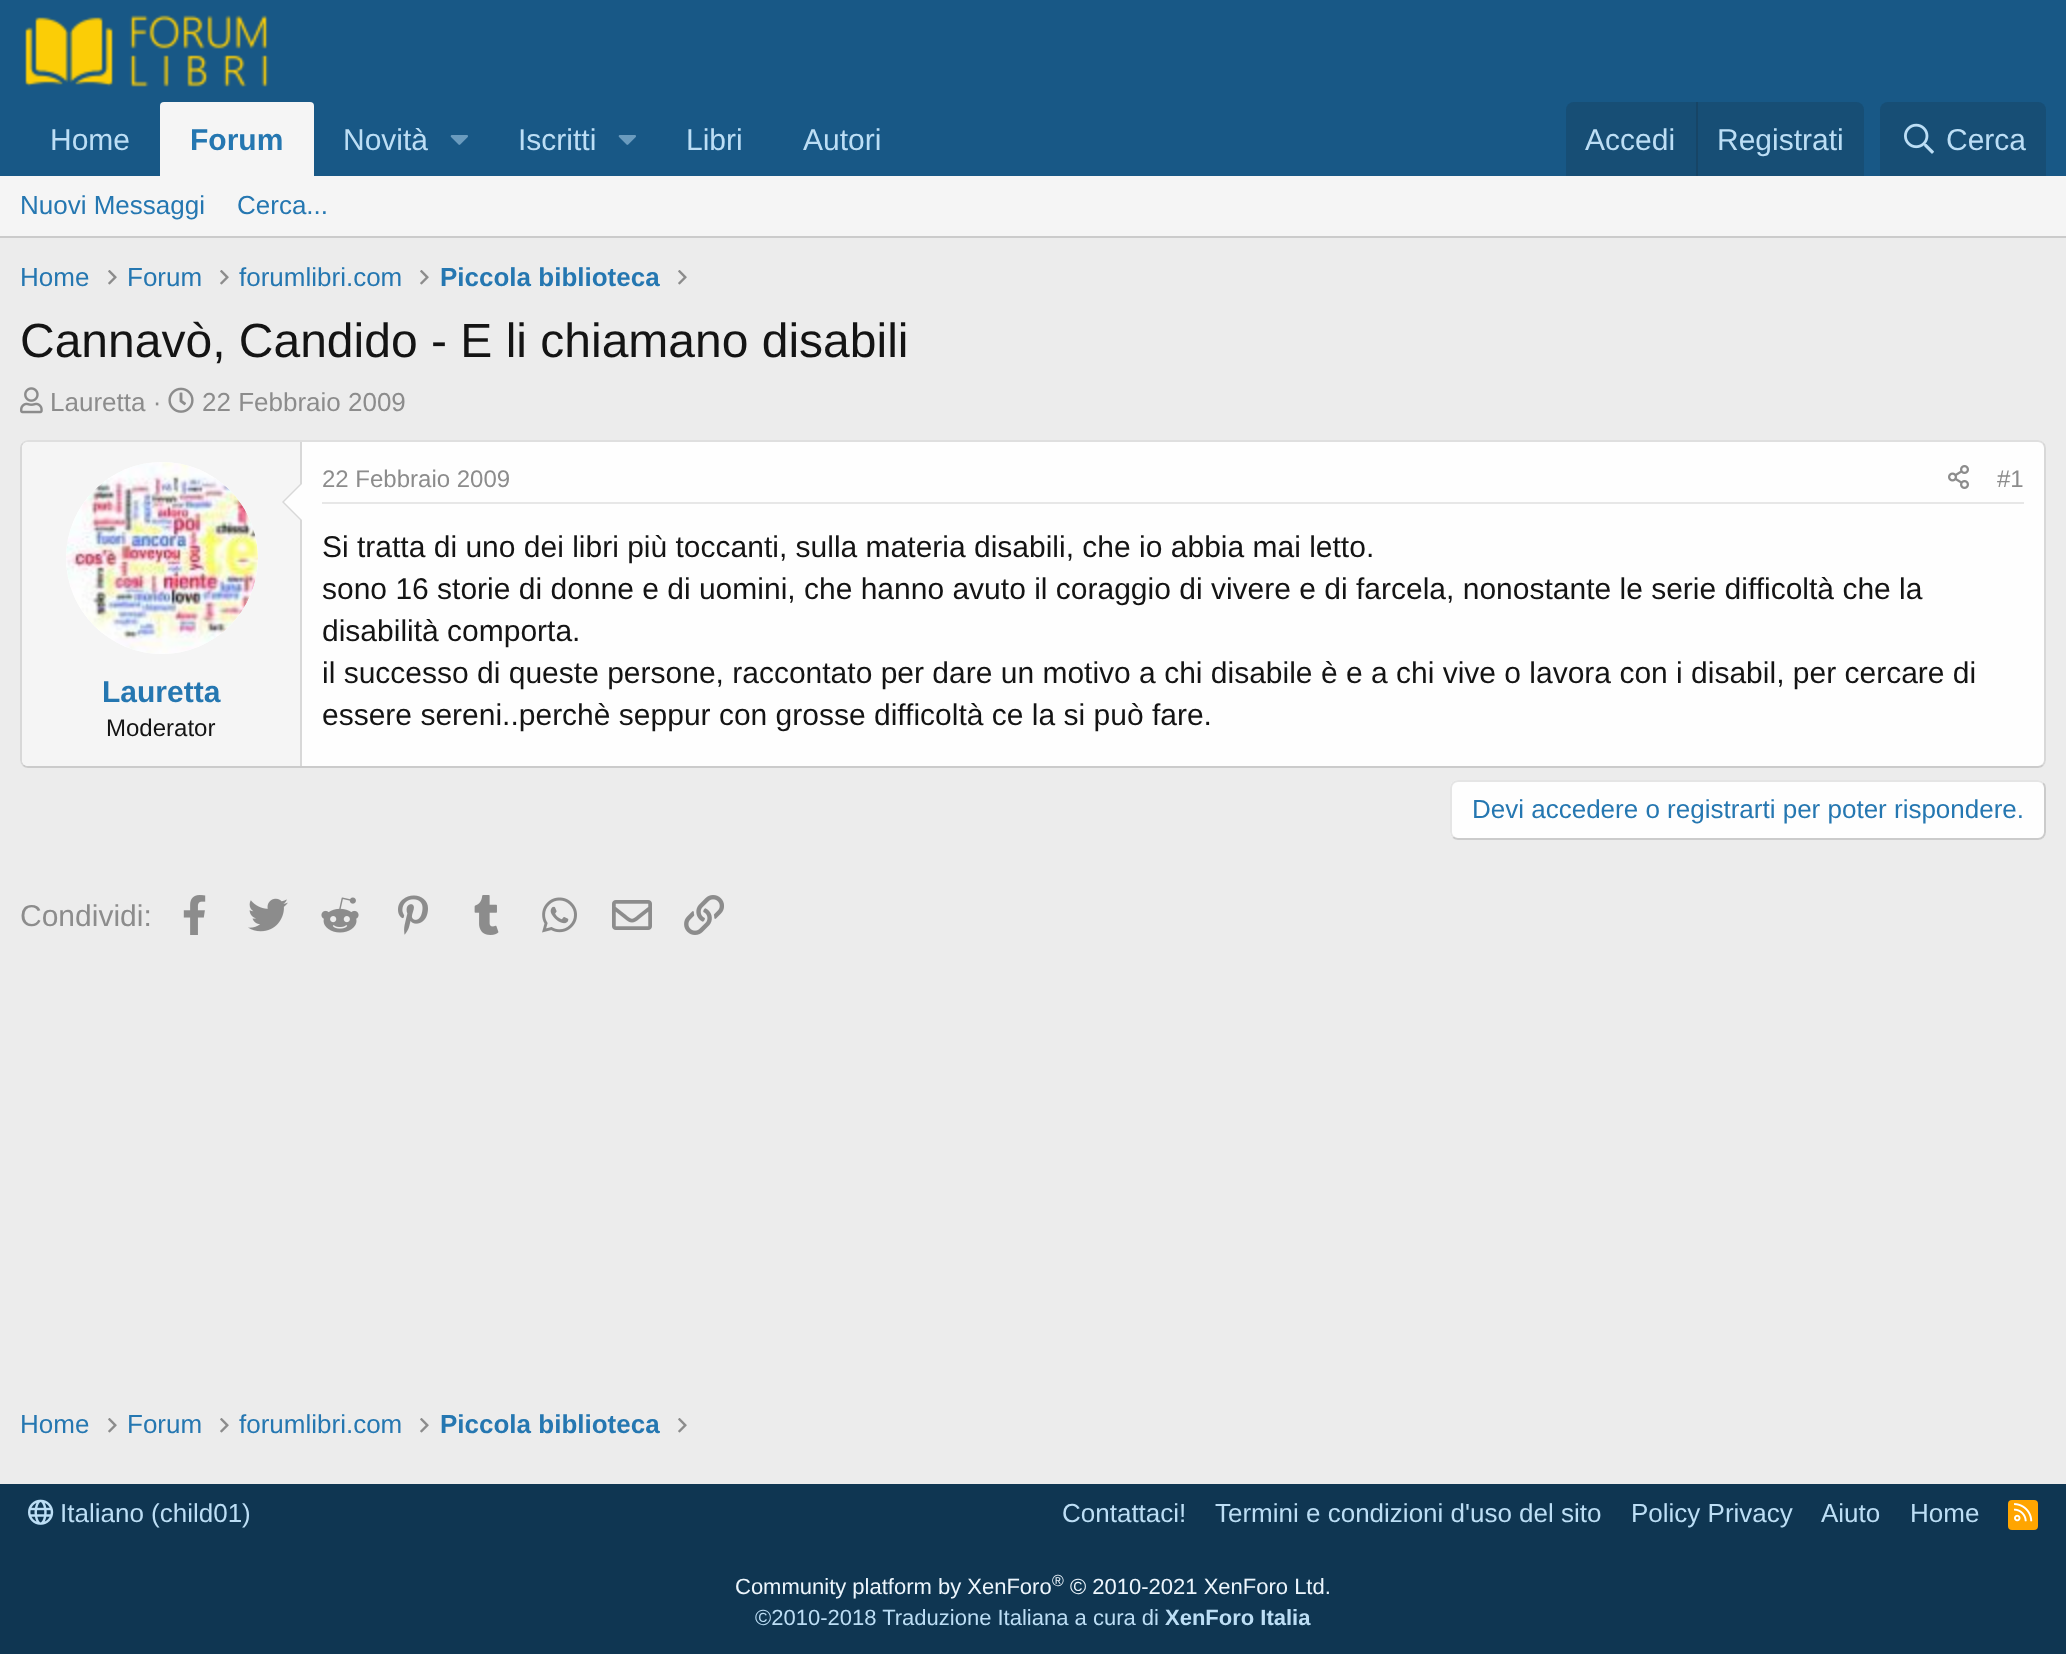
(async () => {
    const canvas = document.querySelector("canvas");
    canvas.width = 2066;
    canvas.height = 1654;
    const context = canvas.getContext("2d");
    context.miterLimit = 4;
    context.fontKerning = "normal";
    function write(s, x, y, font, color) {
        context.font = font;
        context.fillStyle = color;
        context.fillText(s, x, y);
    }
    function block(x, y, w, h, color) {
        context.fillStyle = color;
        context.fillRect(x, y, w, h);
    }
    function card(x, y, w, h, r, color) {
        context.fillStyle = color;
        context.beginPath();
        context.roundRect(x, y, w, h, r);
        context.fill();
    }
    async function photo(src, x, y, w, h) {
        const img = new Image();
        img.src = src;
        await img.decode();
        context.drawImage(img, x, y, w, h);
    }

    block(0, 0, 2066, 1654, "rgb(236, 236, 236)");
    block(0, 0, 2066, 176, "rgb(24, 88, 134)");
    await photo("media/1.png", 25, 15, 244, 72);
    write("Home", 50, 150, "30px Liberation Sans", "rgb(188, 222, 245)");
    context.fillStyle = "rgb(245, 245, 245)";
    context.beginPath();
    context.roundRect(160, 102, 154, 74, [4, 4, 0, 0]);
    context.fill();
    write("Forum", 190, 150, "bold 30px Liberation Sans", "rgb(37, 119, 177)");
    write("Novità", 343, 150, "30px Liberation Sans", "rgb(188, 222, 245)");
    await photo("media/2.png", 450, 135, 18, 10);
    write("Iscritti", 518, 150, "30px Liberation Sans", "rgb(188, 222, 245)");
    await photo("media/2.png", 618, 135, 18, 10);
    write("Libri", 686, 150, "30px Liberation Sans", "rgb(188, 222, 245)");
    write("Autori", 803, 150, "30px Liberation Sans", "rgb(188, 222, 245)");
    context.fillStyle = "rgb(23, 78, 117)";
    context.beginPath();
    context.roundRect(1566, 102, 298, 74, [8, 8, 0, 0]);
    context.fill();
    write("Accedi", 1585, 150, "30px Liberation Sans", "rgb(188, 222, 245)");
    block(1696, 102, 2, 74, "rgb(23, 69, 102)");
    write("Registrati", 1717, 150, "30px Liberation Sans", "rgb(188, 222, 245)");
    context.fillStyle = "rgb(23, 78, 117)";
    context.beginPath();
    context.roundRect(1880, 102, 166, 74, [8, 8, 0, 0]);
    context.fill();
    await photo("media/3.png", 1904, 123, 30, 31);
    write("Cerca", 1946, 150, "30px Liberation Sans", "rgb(188, 222, 245)");
    block(0, 176, 2066, 60, "rgb(245, 245, 245)");
    block(0, 236, 2066, 2, "rgb(203, 203, 203)");
    write("Nuovi Messaggi", 20, 214, "26px Liberation Sans", "rgb(37, 119, 177)");
    write("Cerca...", 237, 214, "26px Liberation Sans", "rgb(37, 119, 177)");
    write("Home", 20, 286, "26px Liberation Sans", "rgb(37, 119, 177)");
    await photo("media/4.png", 108, 270, 9, 15);
    write("Forum", 127, 286, "26px Liberation Sans", "rgb(37, 119, 177)");
    await photo("media/4.png", 220, 270, 9, 15);
    write("forumlibri.com", 239, 286, "26px Liberation Sans", "rgb(37, 119, 177)");
    await photo("media/4.png", 420, 270, 9, 15);
    write("Piccola biblioteca", 440, 286, "bold 26px Liberation Sans", "rgb(37, 119, 177)");
    await photo("media/4.png", 678, 270, 9, 15);
    write("Cannavò, Candido - E li chiamano disabili", 20, 357, "48px Liberation Sans", "rgb(20, 20, 20)");
    await photo("media/5.png", 20, 387, 23, 27);
    write("Lauretta ·", 50, 411, "26px Liberation Sans", "rgb(140, 140, 140)");
    await photo("media/6.png", 168, 387, 26, 26);
    write("22 Febbraio 2009", 202, 411, "26px Liberation Sans", "rgb(140, 140, 140)");
    card(20, 440, 2026, 328, 8, "rgb(254, 254, 254)");
    context.beginPath();
    context.moveTo(23, 443);
    context.bezierCurveTo(24.5, 441.5, 26, 441, 28, 441);
    context.lineTo(2038, 441);
    context.bezierCurveTo(2040, 441, 2041.5, 441.5, 2043, 443);
    context.strokeStyle = "rgb(223, 223, 223)";
    context.lineWidth = 2;
    context.stroke();
    context.beginPath();
    context.moveTo(2043, 443);
    context.bezierCurveTo(2044.5, 444.5, 2045, 446, 2045, 448);
    context.lineTo(2045, 760);
    context.bezierCurveTo(2045, 762, 2044.5, 763.5, 2043, 765);
    context.strokeStyle = "rgb(216, 216, 216)";
    context.stroke();
    context.beginPath();
    context.moveTo(2043, 765);
    context.bezierCurveTo(2041.5, 766.5, 2040, 767, 2038, 767);
    context.lineTo(28, 767);
    context.bezierCurveTo(26, 767, 24.5, 766.5, 23, 765);
    context.strokeStyle = "rgb(203, 203, 203)";
    context.stroke();
    context.beginPath();
    context.moveTo(23, 765);
    context.bezierCurveTo(21.5, 763.5, 21, 762, 21, 760);
    context.lineTo(21, 448);
    context.bezierCurveTo(21, 446, 21.5, 444.5, 23, 443);
    context.strokeStyle = "rgb(216, 216, 216)";
    context.stroke();
    context.fillStyle = "rgb(245, 245, 245)";
    context.beginPath();
    context.roundRect(22, 442, 280, 324, [6, 0, 0, 6]);
    context.fill();
    block(300, 442, 2, 324, "rgb(216, 216, 216)");
    context.fillStyle = "rgb(254, 254, 254)";
    context.beginPath();
    context.arc(162, 558, 96, 0, Math.PI * 2);
    context.fill();
    await photo("media/7.png", 66, 462, 192, 191);
    context.fillStyle = "rgb(216, 216, 216)";
    context.beginPath();
    context.moveTo(302, 482);
    context.lineTo(302, 522);
    context.lineTo(282, 502);
    context.closePath();
    context.fill();
    context.fillStyle = "rgb(254, 254, 254)";
    context.beginPath();
    context.moveTo(302, 484);
    context.lineTo(302, 520);
    context.lineTo(284, 502);
    context.closePath();
    context.fill();
    write("Lauretta", 102, 702, "bold 30px Liberation Sans", "rgb(37, 119, 177)");
    write("Moderator", 106, 736, "24px Liberation Sans", "rgb(20, 20, 20)");
    block(322, 502, 1702, 2, "rgb(231, 231, 231)");
    write("22 Febbraio 2009", 322, 487, "24px Liberation Sans", "rgb(140, 140, 140)");
    await photo("media/8.png", 1948, 465, 21, 24);
    write("#1", 1997, 487, "24px Liberation Sans", "rgb(140, 140, 140)");
    write("Si tratta di uno dei libri più toccanti, sulla materia disabili, che io abbia mai letto.", 322, 557, "30px Liberation Sans", "rgb(20, 20, 20)");
    write("sono 16 storie di donne e di uomini, che hanno avuto il coraggio di vivere e di farcela, nonostante le serie difficoltà che la", 322, 599, "30px Liberation Sans", "rgb(20, 20, 20)");
    write("disabilità comporta.", 322, 641, "30px Liberation Sans", "rgb(20, 20, 20)");
    write("il successo di queste persone, raccontato per dare un motivo a chi disabile è e a chi vive o lavora con i disabil, per cercare di", 322, 683, "30px Liberation Sans", "rgb(20, 20, 20)");
    write("essere sereni..perchè seppur con grosse difficoltà ce la si può fare.", 322, 725, "30px Liberation Sans", "rgb(20, 20, 20)");
    card(1450, 780, 596, 60, 8, "rgb(254, 254, 254)");
    context.beginPath();
    context.moveTo(2043, 783);
    context.bezierCurveTo(2044.5, 784.5, 2045, 786, 2045, 788);
    context.lineTo(2045, 832);
    context.bezierCurveTo(2045, 834, 2044.5, 835.5, 2043, 837);
    context.bezierCurveTo(2041.5, 838.5, 2040, 839, 2038, 839);
    context.lineTo(1458, 839);
    context.bezierCurveTo(1456, 839, 1454.5, 838.5, 1453, 837);
    context.strokeStyle = "rgb(203, 203, 203)";
    context.stroke();
    context.beginPath();
    context.moveTo(1453, 837);
    context.bezierCurveTo(1451.5, 835.5, 1451, 834, 1451, 832);
    context.lineTo(1451, 788);
    context.bezierCurveTo(1451, 786, 1451.5, 784.5, 1453, 783);
    context.bezierCurveTo(1454.5, 781.5, 1456, 781, 1458, 781);
    context.lineTo(2038, 781);
    context.bezierCurveTo(2040, 781, 2041.5, 781.5, 2043, 783);
    context.strokeStyle = "rgb(229, 229, 229)";
    context.stroke();
    write("Devi accedere o registrarti per poter rispondere.", 1472, 818, "26px Liberation Sans", "rgb(37, 119, 177)");
    write("Condividi:", 20, 926, "30px Liberation Sans", "rgb(140, 140, 140)");
    await photo("media/9.png", 183, 895, 23, 40);
    await photo("media/10.png", 248, 898, 40, 34);
    await photo("media/11.png", 321, 897, 38, 36);
    await photo("media/12.png", 398, 895, 30, 40);
    await photo("media/13.png", 474, 895, 25, 40);
    await photo("media/14.png", 542, 897, 35, 36);
    await photo("media/15.png", 612, 900, 40, 30);
    await photo("media/16.png", 684, 895, 40, 40);
    write("Home", 20, 1433, "26px Liberation Sans", "rgb(37, 119, 177)");
    await photo("media/4.png", 108, 1418, 9, 15);
    write("Forum", 127, 1433, "26px Liberation Sans", "rgb(37, 119, 177)");
    await photo("media/4.png", 220, 1418, 9, 15);
    write("forumlibri.com", 239, 1433, "26px Liberation Sans", "rgb(37, 119, 177)");
    await photo("media/4.png", 420, 1418, 9, 15);
    write("Piccola biblioteca", 440, 1433, "bold 26px Liberation Sans", "rgb(37, 119, 177)");
    await photo("media/4.png", 678, 1418, 9, 15);
    block(0, 1484, 2066, 170, "rgb(15, 54, 82)");
    await photo("media/17.png", 28, 1499, 26, 26);
    write("Italiano (child01)", 60, 1522, "26px Liberation Sans", "rgb(188, 222, 245)");
    write("Contattaci!", 1062, 1522, "26px Liberation Sans", "rgb(188, 222, 245)");
    write("Termini e condizioni d'uso del sito", 1215, 1522, "26px Liberation Sans", "rgb(188, 222, 245)");
    write("Policy Privacy", 1631, 1522, "26px Liberation Sans", "rgb(188, 222, 245)");
    write("Aiuto", 1821, 1522, "26px Liberation Sans", "rgb(188, 222, 245)");
    write("Home", 1910, 1522, "26px Liberation Sans", "rgb(188, 222, 245)");
    card(2008, 1500, 30, 30, 4, "rgb(255, 165, 0)");
    await photo("media/18.png", 2014, 1503, 19, 19);
    write("Community platform by XenForo", 735, 1594, "22px Liberation Sans", "rgb(237, 246, 253)");
    write("®", 1052, 1586, "16px Liberation Sans", "rgb(237, 246, 253)");
    write("© 2010-2021 XenForo Ltd.", 1070, 1594, "22px Liberation Sans", "rgb(237, 246, 253)");
    write("©2010-2018 Traduzione Italiana a cura di", 755, 1625, "22px Liberation Sans", "rgb(188, 222, 245)");
    write("XenForo Italia", 1165, 1625, "bold 22px Liberation Sans", "rgb(188, 222, 245)");
})();
